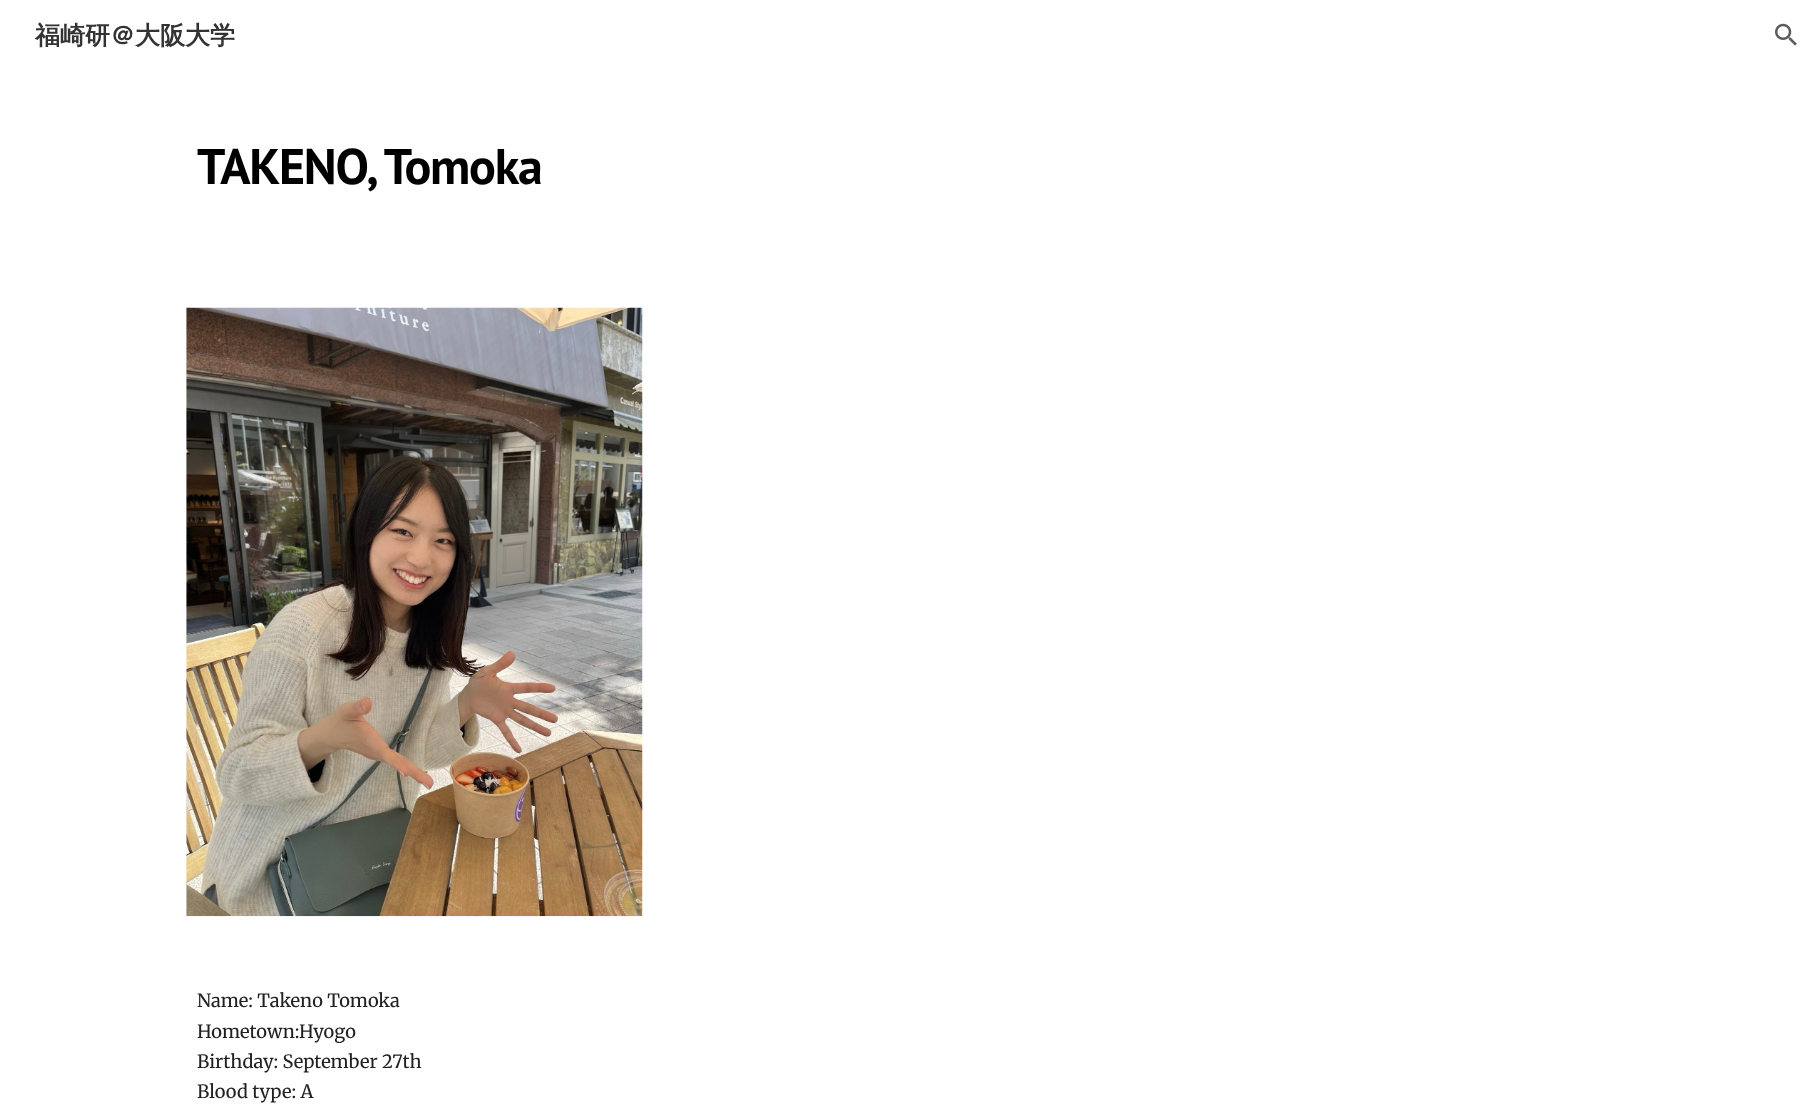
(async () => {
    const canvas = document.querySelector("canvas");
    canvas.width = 1816;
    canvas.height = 1113;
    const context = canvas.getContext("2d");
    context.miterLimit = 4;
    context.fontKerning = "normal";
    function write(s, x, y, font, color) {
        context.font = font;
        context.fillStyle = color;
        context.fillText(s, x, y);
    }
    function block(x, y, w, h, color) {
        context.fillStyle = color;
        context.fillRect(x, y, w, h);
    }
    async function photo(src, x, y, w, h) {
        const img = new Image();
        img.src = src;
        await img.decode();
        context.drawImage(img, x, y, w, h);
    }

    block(0, 0, 1816, 1113, "rgb(255, 255, 255)");
    write("福崎研＠大阪大学", 35, 44, "bold 25px WenQuanYi Zen Hei", "rgb(51, 51, 51)");
    await photo("media/1.png", 1775, 23, 22, 23);
    context.letterSpacing = "-1.25px";
    write("TAKENO, Tomoka", 197, 184, "bold 50px PT Sans", "rgb(0, 0, 0)");
    await photo("media/2.png", 186, 307, 457, 610);
    context.letterSpacing = "0px";
    write("Name: Takeno Tomoka", 197, 1007, "18.25px Merriweather", "rgb(33, 33, 33)");
    write("Hometown:Hyogo", 197, 1038, "18.25px Merriweather", "rgb(33, 33, 33)");
    write("Birthday: September 27th", 197, 1068, "18.25px Merriweather", "rgb(33, 33, 33)");
    write("Blood type: A", 197, 1098, "18.25px Merriweather", "rgb(33, 33, 33)");
})();
